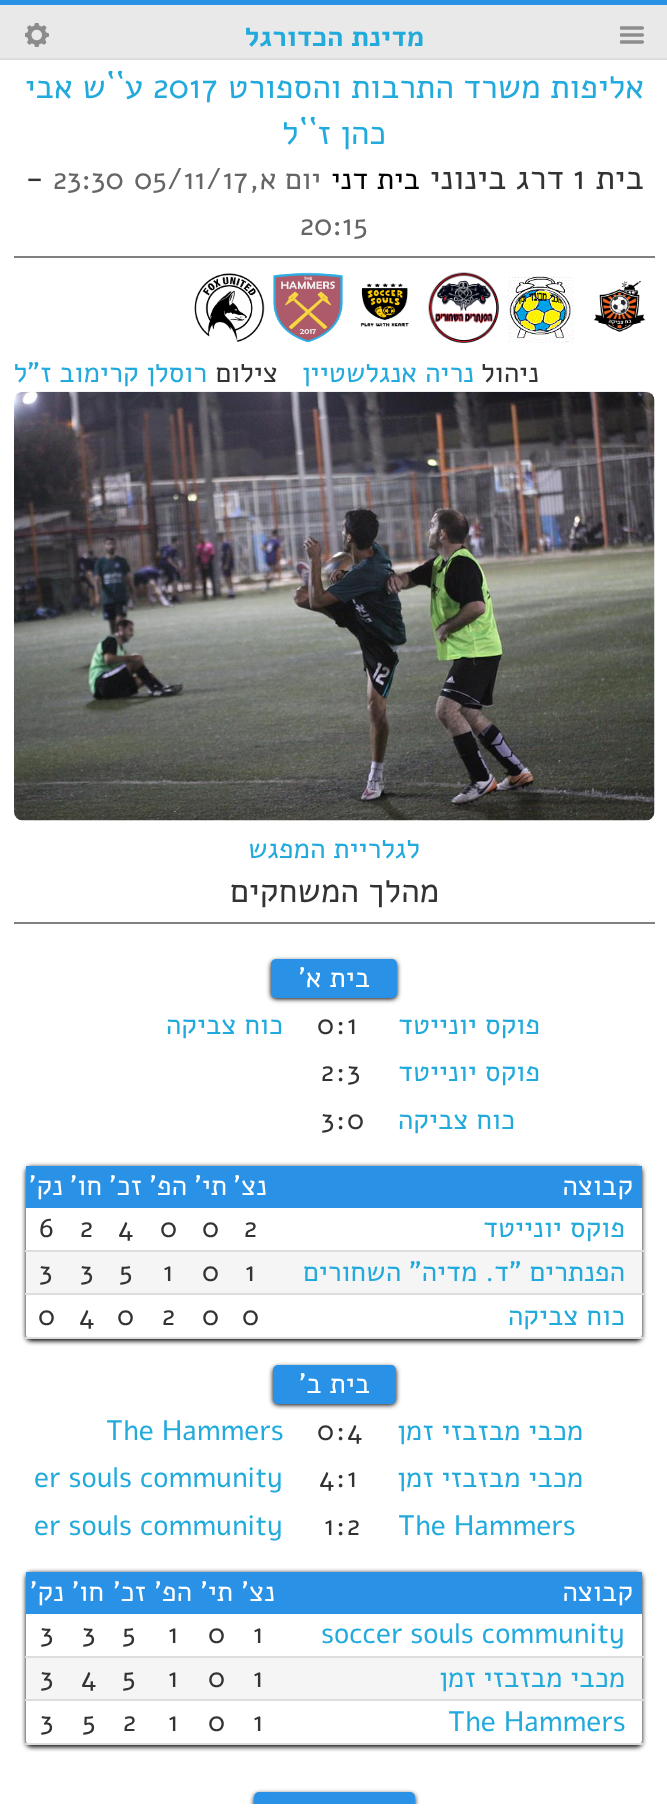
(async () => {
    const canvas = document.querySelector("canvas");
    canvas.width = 667;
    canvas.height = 1813;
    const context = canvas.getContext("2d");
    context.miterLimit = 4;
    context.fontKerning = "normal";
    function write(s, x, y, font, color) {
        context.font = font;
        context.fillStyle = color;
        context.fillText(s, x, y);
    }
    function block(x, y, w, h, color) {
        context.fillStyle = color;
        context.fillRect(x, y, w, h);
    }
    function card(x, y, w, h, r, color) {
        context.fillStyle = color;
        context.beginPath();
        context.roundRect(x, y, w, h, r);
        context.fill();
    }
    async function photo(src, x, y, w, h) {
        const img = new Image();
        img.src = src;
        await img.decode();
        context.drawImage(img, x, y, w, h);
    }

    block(0, 0, 667, 1813, "rgb(255, 255, 255)");
    block(0, 5, 667, 53, "rgb(233, 233, 233)");
    block(0, 0, 667, 5, "rgb(41, 145, 230)");
    block(0, 58, 667, 2, "rgb(221, 221, 221)");
    await photo("media/1.png", 620, 26, 24, 18);
    await photo("media/2.png", 25, 23, 24, 24);
    context.direction = "rtl";
    write("מדינת הכדורגל", 424, 46, "bold 28px Alef", "rgb(34, 170, 221)");
    block(14, 256, 641, 2, "rgb(128, 128, 128)");
    write("אליפות משרד התרבות והספורט", 644, 98, "33.6px Alef", "rgb(34, 170, 221)");
    context.direction = "ltr";
    write("2017", 153, 98, "33.6px Alef", "rgb(34, 170, 221)");
    context.direction = "rtl";
    write("ע``ש אבי", 143, 98, "33.6px Alef", "rgb(34, 170, 221)");
    write("כהן ז``ל", 386, 144, "33.6px Alef", "rgb(34, 170, 221)");
    write("בית", 644, 189, "33.6px Alef", "rgb(51, 51, 51)");
    context.direction = "ltr";
    write("1", 573, 189, "33.6px Alef", "rgb(51, 51, 51)");
    context.direction = "rtl";
    write("דרג בינוני", 564, 189, "33.6px Alef", "rgb(51, 51, 51)");
    write("בית דני", 420, 189, "30px Alef", "rgb(0, 0, 0)");
    write("יום א,", 321, 189, "30px Alef", "rgb(102, 102, 102)");
    context.direction = "ltr";
    write("05/11/17", 134, 189, "30px Alef", "rgb(102, 102, 102)");
    write("23:30", 53, 189, "30px Alef", "rgb(102, 102, 102)");
    write("-", 25, 189, "33.6px Alef", "rgb(51, 51, 51)");
    write("20:15", 300, 235, "30px Alef", "rgb(102, 102, 102)");
    await photo("media/3.png", 593, 280, 53, 53);
    await photo("media/4.png", 508, 276, 67, 67);
    await photo("media/5.png", 428, 272, 71, 71);
    await photo("media/6.png", 360, 283, 49, 44);
    await photo("media/7.png", 273, 272, 70, 71);
    await photo("media/8.png", 194, 273, 71, 69);
    context.direction = "rtl";
    write("ניהול", 539, 382, "28px Alef", "rgb(51, 51, 51)");
    write("נריה אנגלשטיין", 474, 382, "28px Alef", "rgb(34, 170, 221)");
    write("צילום", 278, 382, "28px Alef", "rgb(51, 51, 51)");
    write("רוסלן קרימוב ז\"ל", 207, 382, "28px Alef", "rgb(34, 170, 221)");
    await photo("media/9.png", 14, 391, 641, 430);
    write("לגלריית המפגש", 420, 858, "28px Alef", "rgb(34, 170, 221)");
    block(14, 922, 641, 2, "rgb(128, 128, 128)");
    write("מהלך המשחקים", 439, 902, "33.6px Alef", "rgb(51, 51, 51)");
    context.fillStyle = "rgb(0, 0, 0)";
    context.filter = "blur(2.5px)";
    context.beginPath();
    context.roundRect(271, 961, 126, 38, 5);
    context.fill();
    context.filter = "none";
    card(271, 959, 126, 39, 5, "rgb(41, 145, 230)");
    write("בית א'", 370, 987, "28px Alef", "rgb(255, 255, 255)");
    write("פוקס יונייטד", 540, 1034, "28px Alef", "rgb(34, 170, 221)");
    context.direction = "ltr";
    write("1", 347, 1034, "28px Alef", "rgb(51, 51, 51)");
    write(":", 336, 1034, "28px Alef", "rgb(51, 51, 51)");
    write("0", 317, 1034, "28px Alef", "rgb(51, 51, 51)");
    context.direction = "rtl";
    write("כוח צביקה", 283, 1034, "28px Alef", "rgb(34, 170, 221)");
    write("פוקס יונייטד", 540, 1081, "28px Alef", "rgb(34, 170, 221)");
    context.direction = "ltr";
    write("3", 347, 1081, "28px Alef", "rgb(51, 51, 51)");
    write(":", 336, 1081, "28px Alef", "rgb(51, 51, 51)");
    write("2", 321, 1081, "28px Alef", "rgb(51, 51, 51)");
    context.direction = "rtl";
    write("כוח צביקה", 515, 1129, "28px Alef", "rgb(34, 170, 221)");
    context.direction = "ltr";
    write("0", 347, 1129, "28px Alef", "rgb(51, 51, 51)");
    write(":", 336, 1129, "28px Alef", "rgb(51, 51, 51)");
    write("3", 321, 1129, "28px Alef", "rgb(51, 51, 51)");
    context.save();
    context.beginPath();
    context.moveTo(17, 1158);
    context.lineTo(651, 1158);
    context.lineTo(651, 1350);
    context.lineTo(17, 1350);
    context.closePath();
    context.moveTo(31, 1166);
    context.lineTo(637, 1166);
    context.bezierCurveTo(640, 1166, 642, 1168, 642, 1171);
    context.lineTo(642, 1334);
    context.bezierCurveTo(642, 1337, 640, 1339, 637, 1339);
    context.lineTo(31, 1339);
    context.bezierCurveTo(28, 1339, 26, 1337, 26, 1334);
    context.lineTo(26, 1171);
    context.bezierCurveTo(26, 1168, 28, 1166, 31, 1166);
    context.closePath();
    context.clip("evenodd");
    context.fillStyle = "rgb(0, 0, 0)";
    context.filter = "blur(2.5px)";
    context.beginPath();
    context.roundRect(26, 1167, 616, 174, 5);
    context.fill();
    context.filter = "none";
    context.restore();
    block(26, 1166, 616, 42, "rgb(41, 145, 230)");
    context.direction = "rtl";
    write("קבוצה", 633, 1195, "28px Alef", "rgb(255, 255, 255)");
    write("נצ'", 267, 1195, "28px Alef", "rgb(255, 255, 255)");
    write("תי'", 227, 1195, "28px Alef", "rgb(255, 255, 255)");
    write("הפ'", 187, 1195, "28px Alef", "rgb(255, 255, 255)");
    write("זכ'", 142, 1195, "28px Alef", "rgb(255, 255, 255)");
    write("חו'", 102, 1195, "28px Alef", "rgb(255, 255, 255)");
    write("נק'", 63, 1195, "28px Alef", "rgb(255, 255, 255)");
    block(25, 1250, 619, 2, "rgb(221, 221, 221)");
    write("פוקס יונייטד", 625, 1237, "28px Alef", "rgb(34, 170, 221)");
    context.direction = "ltr";
    write("2", 244, 1237, "28px Alef", "rgb(51, 51, 51)");
    write("0", 202, 1237, "28px Alef", "rgb(51, 51, 51)");
    write("0", 160, 1237, "28px Alef", "rgb(51, 51, 51)");
    write("4", 118, 1237, "28px Alef", "rgb(51, 51, 51)");
    write("2", 80, 1237, "28px Alef", "rgb(51, 51, 51)");
    write("6", 39, 1237, "28px Alef", "rgb(51, 51, 51)");
    block(26, 1252, 616, 41, "rgb(245, 245, 245)");
    block(25, 1293, 619, 2, "rgb(221, 221, 221)");
    context.direction = "rtl";
    write("הפנתרים \"ד. מדיה\" השחורים", 625, 1281, "28px Alef", "rgb(34, 170, 221)");
    context.direction = "ltr";
    write("1", 245, 1281, "28px Alef", "rgb(51, 51, 51)");
    write("0", 202, 1281, "28px Alef", "rgb(51, 51, 51)");
    write("1", 163, 1281, "28px Alef", "rgb(51, 51, 51)");
    write("5", 119, 1281, "28px Alef", "rgb(51, 51, 51)");
    write("3", 80, 1281, "28px Alef", "rgb(51, 51, 51)");
    write("3", 39, 1281, "28px Alef", "rgb(51, 51, 51)");
    block(25, 1337, 619, 2, "rgb(221, 221, 221)");
    context.direction = "rtl";
    write("כוח צביקה", 625, 1325, "28px Alef", "rgb(34, 170, 221)");
    context.direction = "ltr";
    write("0", 242, 1325, "28px Alef", "rgb(51, 51, 51)");
    write("0", 202, 1325, "28px Alef", "rgb(51, 51, 51)");
    write("2", 162, 1325, "28px Alef", "rgb(51, 51, 51)");
    write("0", 117, 1325, "28px Alef", "rgb(51, 51, 51)");
    write("4", 79, 1325, "28px Alef", "rgb(51, 51, 51)");
    write("0", 38, 1325, "28px Alef", "rgb(51, 51, 51)");
    context.fillStyle = "rgb(0, 0, 0)";
    context.filter = "blur(2.5px)";
    context.beginPath();
    context.roundRect(273, 1367, 123, 38, 5);
    context.fill();
    context.filter = "none";
    card(273, 1365, 123, 39, 5, "rgb(41, 145, 230)");
    context.direction = "rtl";
    write("בית ב'", 370, 1393, "28px Alef", "rgb(255, 255, 255)");
    write("מכבי מבזבזי זמן", 583, 1440, "28px Alef", "rgb(34, 170, 221)");
    context.direction = "ltr";
    write("4", 347, 1440, "28px Alef", "rgb(51, 51, 51)");
    write(":", 336, 1440, "28px Alef", "rgb(51, 51, 51)");
    write("0", 317, 1440, "28px Alef", "rgb(51, 51, 51)");
    write("The Hammers", 106, 1440, "28px Alef", "rgb(34, 170, 221)");
    context.direction = "rtl";
    write("מכבי מבזבזי זמן", 583, 1487, "28px Alef", "rgb(34, 170, 221)");
    context.direction = "ltr";
    write("1", 347, 1487, "28px Alef", "rgb(51, 51, 51)");
    write(":", 336, 1487, "28px Alef", "rgb(51, 51, 51)");
    write("4", 319, 1487, "28px Alef", "rgb(51, 51, 51)");
    write("er souls community", 34, 1487, "28px Alef", "rgb(34, 170, 221)");
    write("The Hammers", 398, 1535, "28px Alef", "rgb(34, 170, 221)");
    write("2", 347, 1535, "28px Alef", "rgb(51, 51, 51)");
    write(":", 336, 1535, "28px Alef", "rgb(51, 51, 51)");
    write("1", 324, 1535, "28px Alef", "rgb(51, 51, 51)");
    write("er souls community", 34, 1535, "28px Alef", "rgb(34, 170, 221)");
    context.save();
    context.beginPath();
    context.moveTo(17, 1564);
    context.lineTo(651, 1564);
    context.lineTo(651, 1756);
    context.lineTo(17, 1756);
    context.closePath();
    context.moveTo(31, 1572);
    context.lineTo(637, 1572);
    context.bezierCurveTo(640, 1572, 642, 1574, 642, 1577);
    context.lineTo(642, 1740);
    context.bezierCurveTo(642, 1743, 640, 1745, 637, 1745);
    context.lineTo(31, 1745);
    context.bezierCurveTo(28, 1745, 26, 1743, 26, 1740);
    context.lineTo(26, 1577);
    context.bezierCurveTo(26, 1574, 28, 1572, 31, 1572);
    context.closePath();
    context.clip("evenodd");
    context.fillStyle = "rgb(0, 0, 0)";
    context.filter = "blur(2.5px)";
    context.beginPath();
    context.roundRect(26, 1573, 616, 174, 5);
    context.fill();
    context.filter = "none";
    context.restore();
    block(26, 1572, 616, 42, "rgb(41, 145, 230)");
    context.direction = "rtl";
    write("קבוצה", 633, 1601, "28px Alef", "rgb(255, 255, 255)");
    write("נצ'", 275, 1601, "28px Alef", "rgb(255, 255, 255)");
    write("תי'", 233, 1601, "28px Alef", "rgb(255, 255, 255)");
    write("הפ'", 192, 1601, "28px Alef", "rgb(255, 255, 255)");
    write("זכ'", 146, 1601, "28px Alef", "rgb(255, 255, 255)");
    write("חו'", 104, 1601, "28px Alef", "rgb(255, 255, 255)");
    write("נק'", 64, 1601, "28px Alef", "rgb(255, 255, 255)");
    block(25, 1656, 619, 2, "rgb(221, 221, 221)");
    context.direction = "ltr";
    write("soccer souls community", 321, 1643, "28px Alef", "rgb(34, 170, 221)");
    write("1", 253, 1643, "28px Alef", "rgb(51, 51, 51)");
    write("0", 208, 1643, "28px Alef", "rgb(51, 51, 51)");
    write("1", 168, 1643, "28px Alef", "rgb(51, 51, 51)");
    write("5", 122, 1643, "28px Alef", "rgb(51, 51, 51)");
    write("3", 82, 1643, "28px Alef", "rgb(51, 51, 51)");
    write("3", 40, 1643, "28px Alef", "rgb(51, 51, 51)");
    block(26, 1658, 616, 41, "rgb(245, 245, 245)");
    block(25, 1699, 619, 2, "rgb(221, 221, 221)");
    context.direction = "rtl";
    write("מכבי מבזבזי זמן", 625, 1687, "28px Alef", "rgb(34, 170, 221)");
    context.direction = "ltr";
    write("1", 253, 1687, "28px Alef", "rgb(51, 51, 51)");
    write("0", 208, 1687, "28px Alef", "rgb(51, 51, 51)");
    write("1", 168, 1687, "28px Alef", "rgb(51, 51, 51)");
    write("5", 122, 1687, "28px Alef", "rgb(51, 51, 51)");
    write("4", 81, 1687, "28px Alef", "rgb(51, 51, 51)");
    write("3", 40, 1687, "28px Alef", "rgb(51, 51, 51)");
    block(25, 1743, 619, 2, "rgb(221, 221, 221)");
    write("The Hammers", 448, 1731, "28px Alef", "rgb(34, 170, 221)");
    write("1", 253, 1731, "28px Alef", "rgb(51, 51, 51)");
    write("0", 208, 1731, "28px Alef", "rgb(51, 51, 51)");
    write("1", 168, 1731, "28px Alef", "rgb(51, 51, 51)");
    write("2", 123, 1731, "28px Alef", "rgb(51, 51, 51)");
    write("5", 82, 1731, "28px Alef", "rgb(51, 51, 51)");
    write("3", 40, 1731, "28px Alef", "rgb(51, 51, 51)");
    context.save();
    context.beginPath();
    context.rect(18, 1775, 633, 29);
    context.clip();
    context.fillStyle = "rgb(0, 0, 0)";
    context.filter = "blur(2.5px)";
    context.beginPath();
    context.roundRect(254, 1794, 161, 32, 5);
    context.fill();
    context.filter = "none";
    context.restore();
    context.fillStyle = "rgb(41, 145, 230)";
    context.beginPath();
    context.roundRect(254, 1792, 161, 12, [5, 5, 0, 0]);
    context.fill();
})();
